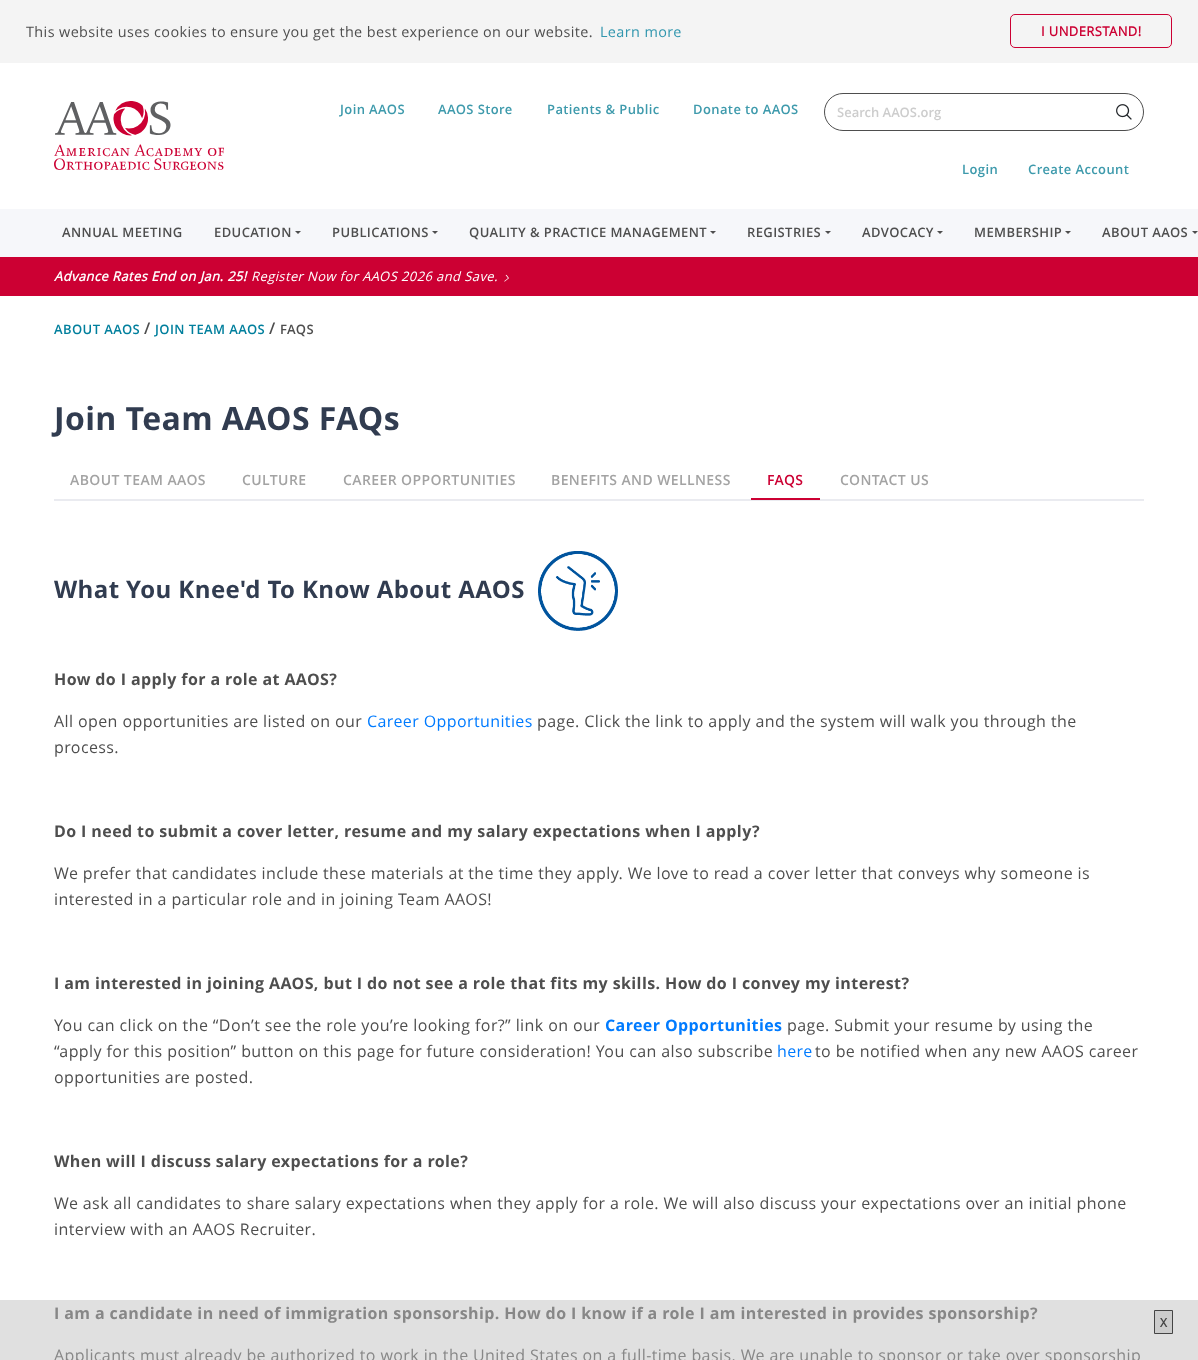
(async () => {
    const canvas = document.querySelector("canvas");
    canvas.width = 1198;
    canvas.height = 1360;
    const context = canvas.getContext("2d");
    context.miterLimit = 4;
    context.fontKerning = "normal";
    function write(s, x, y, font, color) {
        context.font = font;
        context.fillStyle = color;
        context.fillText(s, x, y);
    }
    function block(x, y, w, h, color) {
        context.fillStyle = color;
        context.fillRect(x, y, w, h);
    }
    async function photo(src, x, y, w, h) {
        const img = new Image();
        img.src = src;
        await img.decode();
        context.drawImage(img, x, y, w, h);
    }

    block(0, 0, 1198, 1360, "rgb(255, 255, 255)");
    block(0, 1300, 1198, 60, "rgb(224, 224, 224)");
    block(0, 0, 1198, 63, "rgb(244, 244, 244)");
    context.letterSpacing = "0.4px";
    write("This website uses cookies to ensure you get the best experience on our website.", 26, 37, "14.4px Open Sans", "rgb(78, 78, 78)");
    write("Learn more", 600, 37, "14.4px Open Sans", "rgb(49, 150, 174)");
    context.beginPath();
    context.roundRect(1010.5, 14.5, 161, 33, 4.5);
    context.strokeStyle = "rgb(204, 0, 51)";
    context.stroke();
    write("I UNDERSTAND!", 1041, 36, "bold 13px 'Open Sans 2'", "rgb(204, 0, 51)");
    await photo("media/1.png", 54, 101, 170, 69);
    write("Join AAOS", 340, 114, "600 13px Open Sans", "rgb(62, 154, 172)");
    write("AAOS Store", 438, 114, "600 13px Open Sans", "rgb(62, 154, 172)");
    write("Patients & Public", 547, 114, "600 13px Open Sans", "rgb(62, 154, 172)");
    write("Donate to AAOS", 693, 114, "600 13px Open Sans", "rgb(62, 154, 172)");
    context.beginPath();
    context.roundRect(824.5, 93.5, 319, 37, 18.5);
    context.strokeStyle = "rgb(78, 78, 78)";
    context.stroke();
    context.letterSpacing = "0px";
    write("Search AAOS.org", 837, 117, "600 13px Open Sans", "rgb(205, 205, 205)");
    await photo("media/2.png", 1116, 104, 16, 16);
    context.letterSpacing = "0.4px";
    write("Login", 962, 174, "600 13px Open Sans", "rgb(62, 154, 172)");
    write("Create Account", 1028, 174, "600 13px Open Sans", "rgb(62, 154, 172)");
    block(0, 209, 1198, 48, "rgb(246, 247, 250)");
    write("ANNUAL MEETING", 62, 237, "600 13px Open Sans", "rgb(78, 78, 78)");
    write("EDUCATION", 214, 237, "600 13px Open Sans", "rgb(78, 78, 78)");
    context.beginPath();
    context.moveTo(295, 231);
    context.lineTo(301, 231);
    context.lineTo(298, 234);
    context.closePath();
    context.fill();
    write("PUBLICATIONS", 332, 237, "600 13px Open Sans", "rgb(78, 78, 78)");
    context.beginPath();
    context.moveTo(432, 231);
    context.lineTo(438, 231);
    context.lineTo(435, 234);
    context.closePath();
    context.fill();
    write("QUALITY & PRACTICE MANAGEMENT", 469, 237, "600 13px Open Sans", "rgb(78, 78, 78)");
    context.beginPath();
    context.moveTo(710, 231);
    context.lineTo(716, 231);
    context.lineTo(713, 234);
    context.closePath();
    context.fill();
    write("REGISTRIES", 747, 237, "600 13px Open Sans", "rgb(78, 78, 78)");
    context.beginPath();
    context.moveTo(825, 231);
    context.lineTo(831, 231);
    context.lineTo(828, 234);
    context.closePath();
    context.fill();
    write("ADVOCACY", 862, 237, "600 13px Open Sans", "rgb(78, 78, 78)");
    context.beginPath();
    context.moveTo(937, 231);
    context.lineTo(943, 231);
    context.lineTo(940, 234);
    context.closePath();
    context.fill();
    write("MEMBERSHIP", 974, 237, "600 13px Open Sans", "rgb(78, 78, 78)");
    context.beginPath();
    context.moveTo(1065, 231);
    context.lineTo(1071, 231);
    context.lineTo(1068, 234);
    context.closePath();
    context.fill();
    write("ABOUT AAOS", 1102, 237, "600 13px Open Sans", "rgb(78, 78, 78)");
    context.beginPath();
    context.moveTo(1192, 231);
    context.lineTo(1198, 231);
    context.lineTo(1195, 234);
    context.closePath();
    context.fill();
    block(0, 257, 1198, 39, "rgb(204, 0, 51)");
    write("Advance Rates End on Jan. 25!", 54, 281, "italic bold 13px Open Sans", "rgb(255, 255, 255)");
    write("Register Now for AAOS 2026 and Save.", 251, 281, "italic 13px Open Sans", "rgb(255, 255, 255)");
    await photo("media/3.png", 504, 274, 5, 8);
    write("ABOUT AAOS", 54, 334, "600 13px Open Sans", "rgb(0, 127, 157)");
    write("/", 144, 334, "600 16px Open Sans", "rgb(78, 78, 78)");
    write("JOIN TEAM AAOS", 155, 334, "600 13px Open Sans", "rgb(0, 127, 157)");
    write("/", 269, 334, "600 16px Open Sans", "rgb(78, 78, 78)");
    write("FAQS", 280, 334, "600 13px Open Sans", "rgb(78, 78, 78)");
    write("Join Team AAOS FAQs", 54, 430, "bold 32px Open Sans", "rgb(49, 60, 80)");
    write("ABOUT TEAM AAOS", 70, 485, "600 14px Open Sans", "rgb(163, 163, 163)");
    write("CULTURE", 242, 485, "600 14px Open Sans", "rgb(163, 163, 163)");
    write("CAREER OPPORTUNITIES", 343, 485, "600 14px Open Sans", "rgb(163, 163, 163)");
    write("BENEFITS AND WELLNESS", 551, 485, "600 14px Open Sans", "rgb(163, 163, 163)");
    block(54, 499, 1090, 2, "rgb(234, 235, 240)");
    block(751, 498, 69, 2, "rgb(204, 0, 51)");
    write("FAQS", 767, 485, "600 14px Open Sans", "rgb(204, 0, 51)");
    write("CONTACT US", 840, 485, "600 14px Open Sans", "rgb(163, 163, 163)");
    write("What You Knee'd To Know About AAOS", 54, 598, "bold 24px Open Sans", "rgb(49, 60, 80)");
    await photo("media/4.png", 538, 551, 80, 80);
    write("How do I apply for a role at AAOS?", 54, 685, "bold 16px Open Sans", "rgb(78, 78, 78)");
    write("All open opportunities are listed on our", 54, 727, "16px Open Sans", "rgb(78, 78, 78)");
    write("Career Opportunities", 367, 727, "16px Open Sans", "rgb(0, 123, 255)");
    write("page. Click the link to apply and the system will walk you through the", 537, 727, "16px Open Sans", "rgb(78, 78, 78)");
    write("process.", 54, 753, "16px Open Sans", "rgb(78, 78, 78)");
    write("Do I need to submit a cover letter, resume and my salary expectations when I apply?", 54, 837, "bold 16px Open Sans", "rgb(78, 78, 78)");
    write("We prefer that candidates include these materials at the time they apply. We love to read a cover letter that conveys why someone is", 54, 879, "16px Open Sans", "rgb(78, 78, 78)");
    write("interested in a particular role and in joining Team AAOS!", 54, 905, "16px Open Sans", "rgb(78, 78, 78)");
    write("I am interested in joining AAOS, but I do not see a role that fits my skills. How do I convey my interest?", 54, 989, "bold 16px Open Sans", "rgb(78, 78, 78)");
    write("You can click on the “Don’t see the role you’re looking for?” link on our", 54, 1031, "16px Open Sans", "rgb(78, 78, 78)");
    write("Career Opportunities", 605, 1031, "bold 16px Open Sans", "rgb(0, 123, 255)");
    write("page. Submit your resume by using the", 787, 1031, "16px Open Sans", "rgb(78, 78, 78)");
    write("“apply for this position” button on this page for future consideration! You can also subscribe", 54, 1057, "16px Open Sans", "rgb(78, 78, 78)");
    write("here", 777, 1057, "16px Open Sans", "rgb(0, 123, 255)");
    write("to be notified when any new AAOS career", 815, 1057, "16px Open Sans", "rgb(78, 78, 78)");
    write("opportunities are posted.", 54, 1083, "16px Open Sans", "rgb(78, 78, 78)");
    write("When will I discuss salary expectations for a role?", 54, 1167, "bold 16px Open Sans", "rgb(78, 78, 78)");
    write("We ask all candidates to share salary expectations when they apply for a role. We will also discuss your expectations over an initial phone", 54, 1209, "16px Open Sans", "rgb(78, 78, 78)");
    write("interview with an AAOS Recruiter.", 54, 1235, "16px Open Sans", "rgb(78, 78, 78)");
    write("I am a candidate in need of immigration sponsorship. How do I know if a role I am interested in provides sponsorship?", 54, 1319, "bold 16px Open Sans", "rgb(135, 135, 135)");
    write("Applicants must already be authorized to work in the United States on a full-time basis. We are unable to sponsor or take over sponsorship", 54, 1361, "16px Open Sans", "rgb(135, 135, 135)");
    context.fillStyle = "rgb(204, 204, 204)";
    context.beginPath();
    context.rect(1154.5, 1310.5, 18, 23);
    context.fill();
    context.strokeStyle = "rgb(68, 68, 68)";
    context.stroke();
    context.letterSpacing = "0px";
    write("X", 1160, 1327, "bold 12px 'Open Sans 2'", "rgb(68, 68, 68)");
})();
